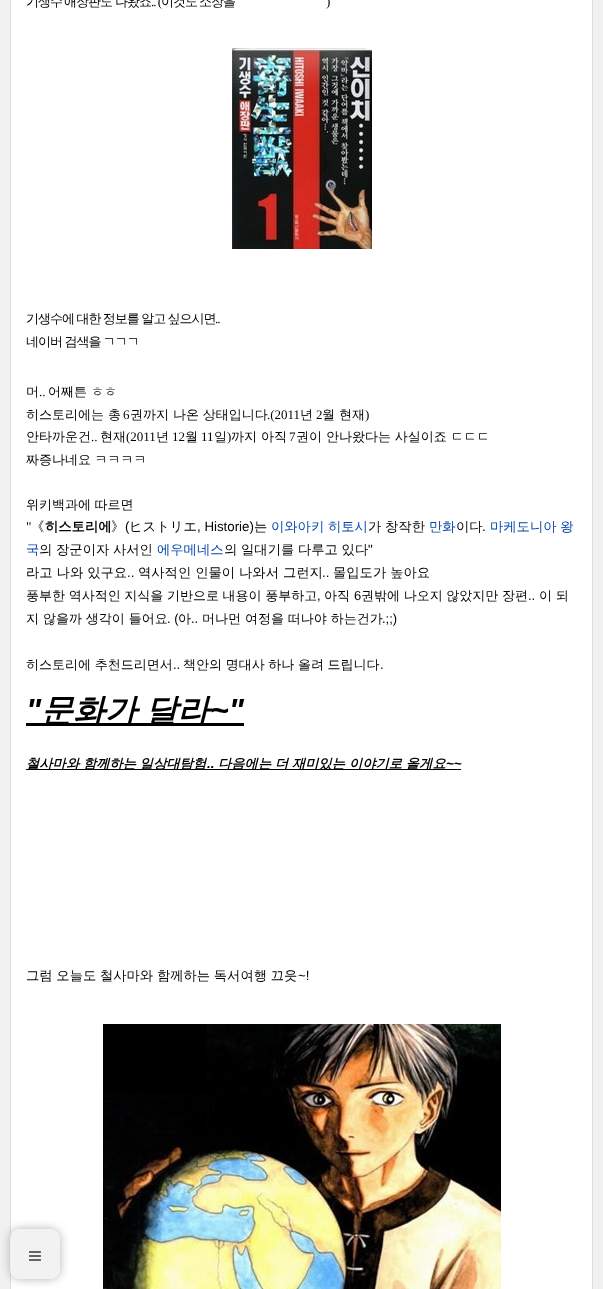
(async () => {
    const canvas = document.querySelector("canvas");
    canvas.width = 603;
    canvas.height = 1289;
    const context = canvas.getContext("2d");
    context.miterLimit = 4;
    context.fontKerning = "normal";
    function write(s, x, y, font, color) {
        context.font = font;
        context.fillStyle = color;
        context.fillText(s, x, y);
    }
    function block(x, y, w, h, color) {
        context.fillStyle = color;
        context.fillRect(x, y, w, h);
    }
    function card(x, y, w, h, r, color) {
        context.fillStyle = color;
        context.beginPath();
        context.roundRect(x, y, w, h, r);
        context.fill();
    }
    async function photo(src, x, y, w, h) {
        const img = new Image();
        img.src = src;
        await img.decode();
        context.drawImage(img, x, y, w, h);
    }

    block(0, 0, 603, 1289, "rgb(241, 241, 241)");
    context.fillStyle = "rgb(255, 255, 255)";
    context.beginPath();
    context.rect(10.5, -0.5, 582, 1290);
    context.fill();
    context.strokeStyle = "rgb(221, 221, 221)";
    context.stroke();
    context.letterSpacing = "-1px";
    write("기생수", 26, 6, "500 13px WenQuanYi Zen Hei", "rgb(0, 0, 0)");
    write("애장판도", 64, 6, "500 13px WenQuanYi Zen Hei", "rgb(0, 0, 0)");
    write("나왔죠", 115, 6, "500 13px WenQuanYi Zen Hei", "rgb(0, 0, 0)");
    write(".. (", 151, 6, "13px Liberation Serif", "rgb(0, 0, 0)");
    write("이것도", 161, 6, "500 13px WenQuanYi Zen Hei", "rgb(0, 0, 0)");
    write("소장을", 199, 6, "500 13px WenQuanYi Zen Hei", "rgb(0, 0, 0)");
    write(")", 326, 6, "13px Liberation Serif", "rgb(0, 0, 0)");
    await photo("media/1.png", 232, 48, 140, 201);
    context.wordSpacing = "-0.5px";
    write("기생수에 대한 정보를 알고 싶으시면", 26, 323, "500 13px WenQuanYi Zen Hei", "rgb(0, 0, 0)");
    context.wordSpacing = "0px";
    write("..", 215, 323, "13px Liberation Serif", "rgb(0, 0, 0)");
    context.wordSpacing = "-0.5px";
    write("네이버 검색을 ㄱㄱㄱ", 26, 346, "500 13px WenQuanYi Zen Hei", "rgb(0, 0, 0)");
    context.letterSpacing = "0px";
    context.wordSpacing = "0px";
    write("머", 26, 396, "500 13px WenQuanYi Zen Hei", "rgb(0, 0, 0)");
    write("..", 39, 396, "13px Liberation Serif", "rgb(0, 0, 0)");
    write("어째튼 ㅎㅎ", 48, 396, "500 13px WenQuanYi Zen Hei", "rgb(0, 0, 0)");
    write("히스토리에는 총", 26, 419, "500 13px WenQuanYi Zen Hei", "rgb(0, 0, 0)");
    write("6", 123, 419, "13px Liberation Serif", "rgb(0, 0, 0)");
    write("권까지 나온 상태입니다", 130, 419, "500 13px WenQuanYi Zen Hei", "rgb(0, 0, 0)");
    write(".(2011", 267, 419, "13px Liberation Serif", "rgb(0, 0, 0)");
    write("년", 300, 419, "500 13px WenQuanYi Zen Hei", "rgb(0, 0, 0)");
    write("2", 316, 419, "13px Liberation Serif", "rgb(0, 0, 0)");
    write("월 현재", 322, 419, "500 13px WenQuanYi Zen Hei", "rgb(0, 0, 0)");
    write(")", 365, 419, "13px Liberation Serif", "rgb(0, 0, 0)");
    write("안타까운건", 26, 441, "500 13px WenQuanYi Zen Hei", "rgb(0, 0, 0)");
    write("..", 91, 441, "13px Liberation Serif", "rgb(0, 0, 0)");
    write("현재", 100, 441, "500 13px WenQuanYi Zen Hei", "rgb(0, 0, 0)");
    write("(2011", 126, 441, "13px Liberation Serif", "rgb(0, 0, 0)");
    write("년", 156, 441, "500 13px WenQuanYi Zen Hei", "rgb(0, 0, 0)");
    write("12", 172, 441, "13px Liberation Serif", "rgb(0, 0, 0)");
    write("월", 185, 441, "500 13px WenQuanYi Zen Hei", "rgb(0, 0, 0)");
    write("11", 201, 441, "13px Liberation Serif", "rgb(0, 0, 0)");
    write("일", 214, 441, "500 13px WenQuanYi Zen Hei", "rgb(0, 0, 0)");
    write(")", 227, 441, "13px Liberation Serif", "rgb(0, 0, 0)");
    write("까지 아직", 231, 441, "500 13px WenQuanYi Zen Hei", "rgb(0, 0, 0)");
    write("7", 289, 441, "13px Liberation Serif", "rgb(0, 0, 0)");
    write("권이 안나왔다는 사실이죠 ㄷㄷㄷ", 296, 441, "500 13px WenQuanYi Zen Hei", "rgb(0, 0, 0)");
    context.wordSpacing = "-0.5px";
    write("짜증나네요 ㅋㅋㅋㅋ", 26, 464, "500 13px WenQuanYi Zen Hei", "rgb(0, 0, 0)");
    write("위키백과에 따르면", 26, 509, "500 13px WenQuanYi Zen Hei", "rgb(0, 0, 0)");
    context.wordSpacing = "0px";
    write("\"", 26, 531, "13.3px Liberation Serif", "rgb(0, 0, 0)");
    write("《", 31, 531, "500 13.3px WenQuanYi Zen Hei", "rgb(0, 0, 0)");
    write("히스토리에", 45, 531, "bold 13.3px WenQuanYi Zen Hei", "rgb(0, 0, 0)");
    write("》", 111, 531, "500 13.3px WenQuanYi Zen Hei", "rgb(0, 0, 0)");
    write("(", 125, 531, "13.3px Liberation Sans", "rgb(0, 0, 0)");
    write("ヒストリエ", 129, 531, "500 13.3px WenQuanYi Zen Hei", "rgb(0, 0, 0)");
    write(", Historie)", 197, 531, "13.3px Liberation Sans", "rgb(0, 0, 0)");
    write("는", 254, 531, "500 13.3px WenQuanYi Zen Hei", "rgb(0, 0, 0)");
    context.wordSpacing = "-0.25px";
    write("이와아키 히토시", 271, 531, "500 13.3px WenQuanYi Zen Hei", "rgb(6, 69, 173)");
    write("가 창작한", 368, 531, "500 13.3px WenQuanYi Zen Hei", "rgb(0, 0, 0)");
    context.wordSpacing = "0px";
    write("만화", 429, 531, "500 13.3px WenQuanYi Zen Hei", "rgb(6, 69, 173)");
    write("이다", 456, 531, "500 13.3px WenQuanYi Zen Hei", "rgb(0, 0, 0)");
    context.wordSpacing = "-0.25px";
    write("마케도니아 왕", 490, 531, "500 13.3px WenQuanYi Zen Hei", "rgb(6, 69, 173)");
    context.wordSpacing = "0px";
    write(".", 482, 531, "13.3px Liberation Sans", "rgb(0, 0, 0)");
    write("국", 26, 554, "500 13.3px WenQuanYi Zen Hei", "rgb(6, 69, 173)");
    context.wordSpacing = "-0.25px";
    write("의 장군이자 사서인", 39, 554, "500 13.3px WenQuanYi Zen Hei", "rgb(0, 0, 0)");
    context.wordSpacing = "0px";
    write("에우메네스", 157, 554, "500 13.3px WenQuanYi Zen Hei", "rgb(6, 69, 173)");
    context.wordSpacing = "-0.25px";
    write("의 일대기를 다루고 있다", 224, 554, "500 13.3px WenQuanYi Zen Hei", "rgb(0, 0, 0)");
    context.wordSpacing = "0px";
    write("\"", 368, 554, "13.3px Liberation Sans", "rgb(0, 0, 0)");
    write("라고 나와 있구요", 26, 577, "500 13.3px WenQuanYi Zen Hei", "rgb(0, 0, 0)");
    write("..", 127, 577, "13.3px Liberation Sans", "rgb(0, 0, 0)");
    write("역사적인 인물이 나와서 그런지", 138, 577, "500 13.3px WenQuanYi Zen Hei", "rgb(0, 0, 0)");
    write("..", 322, 577, "13.3px Liberation Sans", "rgb(0, 0, 0)");
    write("몰입도가 높아요", 333, 577, "500 13.3px WenQuanYi Zen Hei", "rgb(0, 0, 0)");
    context.wordSpacing = "-0.25px";
    write("풍부한 역사적인 지식을 기반으로 내용이 풍부하고", 26, 600, "500 13px WenQuanYi Zen Hei", "rgb(0, 0, 0)");
    context.wordSpacing = "0px";
    write(",", 317, 600, "13px Liberation Sans", "rgb(0, 0, 0)");
    write("아직", 324, 600, "500 13px WenQuanYi Zen Hei", "rgb(0, 0, 0)");
    write("6", 354, 600, "13px Liberation Sans", "rgb(0, 0, 0)");
    context.wordSpacing = "-0.25px";
    write("권밖에 나오지 않았지만 장편", 361, 600, "500 13px WenQuanYi Zen Hei", "rgb(0, 0, 0)");
    context.wordSpacing = "0px";
    write("..", 528, 600, "13px Liberation Sans", "rgb(0, 0, 0)");
    context.wordSpacing = "-0.25px";
    write("이 되", 539, 600, "500 13px WenQuanYi Zen Hei", "rgb(0, 0, 0)");
    context.wordSpacing = "0px";
    write("지 않을까 생각이 들어요", 26, 623, "500 13px WenQuanYi Zen Hei", "rgb(0, 0, 0)");
    write(". (", 167, 623, "13px Liberation Sans", "rgb(0, 0, 0)");
    write("아", 178, 623, "500 13px WenQuanYi Zen Hei", "rgb(0, 0, 0)");
    write("..", 191, 623, "13px Liberation Sans", "rgb(0, 0, 0)");
    write("머나먼 여정을 떠나야 하는건가", 202, 623, "500 13px WenQuanYi Zen Hei", "rgb(0, 0, 0)");
    write(".;;)", 382, 623, "13px Liberation Sans", "rgb(0, 0, 0)");
    context.wordSpacing = "-0.25px";
    write("히스토리에 추천드리면서", 26, 669, "500 13px WenQuanYi Zen Hei", "rgb(0, 0, 0)");
    context.wordSpacing = "0px";
    write("..", 173, 669, "13px Liberation Sans", "rgb(0, 0, 0)");
    context.wordSpacing = "-0.25px";
    write("책안의 명대사 하나 올려 드립니다", 183, 669, "500 13px WenQuanYi Zen Hei", "rgb(0, 0, 0)");
    context.wordSpacing = "0px";
    write(".", 380, 669, "13px Liberation Sans", "rgb(0, 0, 0)");
    write("\"", 26, 721, "italic bold 32px Liberation Sans", "rgb(0, 0, 0)");
    block(26, 723, 218, 3, "rgb(0, 0, 0)");
    context.wordSpacing = "-1px";
    write("문화가 달라", 41, 721, "italic bold 32px WenQuanYi Zen Hei", "rgb(0, 0, 0)");
    context.wordSpacing = "0px";
    write("~\"", 210, 721, "italic bold 32px Liberation Sans", "rgb(0, 0, 0)");
    block(26, 769, 435, 1, "rgb(0, 0, 0)");
    context.wordSpacing = "-0.25px";
    write("철사마와 함께하는 일상대탐험", 26, 768, "italic bold 13.3px WenQuanYi Zen Hei", "rgb(0, 0, 0)");
    write("다음에는 더 재미있는 이야기로 올게요", 218, 768, "italic bold 13.3px WenQuanYi Zen Hei", "rgb(0, 0, 0)");
    context.wordSpacing = "0px";
    write("~~", 446, 768, "italic bold 13.3px Liberation Sans", "rgb(0, 0, 0)");
    write("..", 207, 768, "italic bold 13.3px Liberation Sans", "rgb(0, 0, 0)");
    context.wordSpacing = "-0.25px";
    write("그럼 오늘도 철사마와 함께하는 독서여행 끄읏", 26, 980, "500 13.3px WenQuanYi Zen Hei", "rgb(0, 0, 0)");
    context.wordSpacing = "0px";
    write("~!", 298, 980, "13.3px Liberation Sans", "rgb(0, 0, 0)");
    await photo("media/2.png", 103, 1024, 398, 265);
    context.save();
    context.beginPath();
    context.moveTo(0, 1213);
    context.lineTo(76, 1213);
    context.lineTo(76, 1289);
    context.lineTo(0, 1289);
    context.closePath();
    context.moveTo(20, 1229);
    context.lineTo(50, 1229);
    context.bezierCurveTo(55.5, 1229, 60, 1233.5, 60, 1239);
    context.lineTo(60, 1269);
    context.bezierCurveTo(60, 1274.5, 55.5, 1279, 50, 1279);
    context.lineTo(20, 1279);
    context.bezierCurveTo(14.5, 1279, 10, 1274.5, 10, 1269);
    context.lineTo(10, 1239);
    context.bezierCurveTo(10, 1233.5, 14.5, 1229, 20, 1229);
    context.closePath();
    context.clip("evenodd");
    context.fillStyle = "rgba(170, 170, 170, 0.9)";
    context.filter = "blur(5px)";
    context.beginPath();
    context.roundRect(10, 1229, 50, 50, 10);
    context.fill();
    context.filter = "none";
    context.restore();
    card(10, 1229, 50, 50, 10, "rgba(241, 241, 241, 0.9)");
    await photo("media/3.png", 29, 1251, 12, 10);
})();
